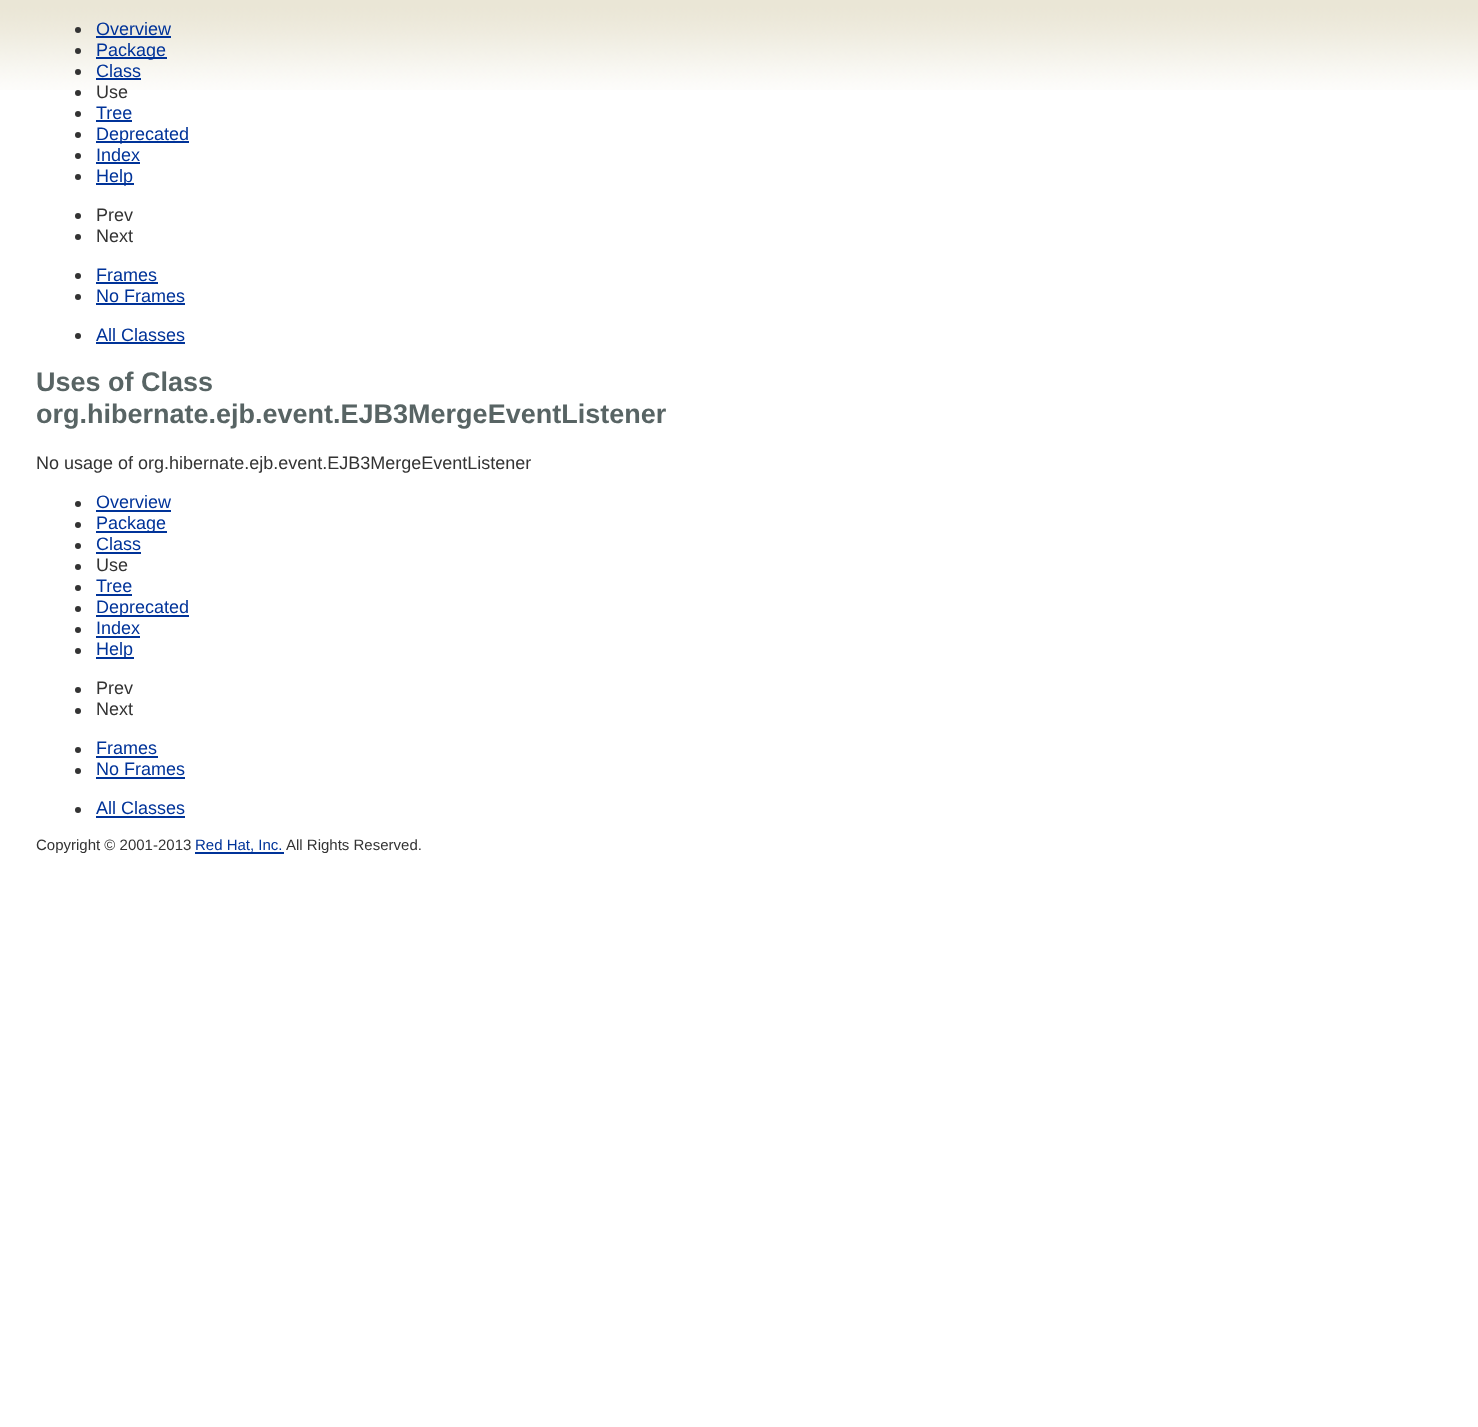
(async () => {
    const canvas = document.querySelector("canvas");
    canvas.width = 1478;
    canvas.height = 1427;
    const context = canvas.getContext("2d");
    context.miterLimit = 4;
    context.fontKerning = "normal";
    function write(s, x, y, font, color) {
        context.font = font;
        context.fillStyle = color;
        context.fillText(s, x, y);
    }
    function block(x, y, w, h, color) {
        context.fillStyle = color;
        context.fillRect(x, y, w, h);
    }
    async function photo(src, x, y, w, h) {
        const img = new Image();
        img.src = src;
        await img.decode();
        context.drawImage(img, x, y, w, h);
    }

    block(0, 0, 1478, 1427, "rgb(255, 255, 255)");
    await photo("media/1.png", 0, 0, 1478, 90);
    context.fillStyle = "rgb(51, 51, 51)";
    context.beginPath();
    context.arc(78, 30, 3, 0, Math.PI * 2);
    context.fill();
    write("Overview", 96, 35, "18px Liberation Sans", "rgb(0, 51, 153)");
    block(96, 36, 75, 2, "rgb(0, 51, 153)");
    context.fillStyle = "rgb(51, 51, 51)";
    context.beginPath();
    context.arc(78, 51, 3, 0, Math.PI * 2);
    context.fill();
    block(96, 57, 71, 2, "rgb(0, 51, 153)");
    write("Package", 96, 56, "18px Liberation Sans", "rgb(0, 51, 153)");
    context.fillStyle = "rgb(51, 51, 51)";
    context.beginPath();
    context.arc(78, 72, 3, 0, Math.PI * 2);
    context.fill();
    write("Class", 96, 77, "18px Liberation Sans", "rgb(0, 51, 153)");
    block(96, 78, 45, 2, "rgb(0, 51, 153)");
    context.fillStyle = "rgb(51, 51, 51)";
    context.beginPath();
    context.arc(78, 93, 3, 0, Math.PI * 2);
    context.fill();
    write("Use", 96, 98, "18px Liberation Sans", "rgb(51, 51, 51)");
    context.beginPath();
    context.arc(78, 114, 3, 0, Math.PI * 2);
    context.fill();
    write("Tree", 96, 119, "18px Liberation Sans", "rgb(0, 51, 153)");
    block(96, 120, 36, 2, "rgb(0, 51, 153)");
    context.fillStyle = "rgb(51, 51, 51)";
    context.beginPath();
    context.arc(78, 135, 3, 0, Math.PI * 2);
    context.fill();
    block(96, 141, 93, 2, "rgb(0, 51, 153)");
    write("Deprecated", 96, 140, "18px Liberation Sans", "rgb(0, 51, 153)");
    context.fillStyle = "rgb(51, 51, 51)";
    context.beginPath();
    context.arc(78, 156, 3, 0, Math.PI * 2);
    context.fill();
    write("Index", 96, 161, "18px Liberation Sans", "rgb(0, 51, 153)");
    block(96, 162, 44, 2, "rgb(0, 51, 153)");
    context.fillStyle = "rgb(51, 51, 51)";
    context.beginPath();
    context.arc(78, 177, 3, 0, Math.PI * 2);
    context.fill();
    block(96, 183, 38, 2, "rgb(0, 51, 153)");
    write("Help", 96, 182, "18px Liberation Sans", "rgb(0, 51, 153)");
    context.fillStyle = "rgb(51, 51, 51)";
    context.beginPath();
    context.arc(78, 216, 3, 0, Math.PI * 2);
    context.fill();
    write("Prev", 96, 221, "18px Liberation Sans", "rgb(51, 51, 51)");
    context.beginPath();
    context.arc(78, 237, 3, 0, Math.PI * 2);
    context.fill();
    write("Next", 96, 242, "18px Liberation Sans", "rgb(51, 51, 51)");
    context.beginPath();
    context.arc(78, 276, 3, 0, Math.PI * 2);
    context.fill();
    write("Frames", 96, 281, "18px Liberation Sans", "rgb(0, 51, 153)");
    block(96, 282, 62, 2, "rgb(0, 51, 153)");
    context.fillStyle = "rgb(51, 51, 51)";
    context.beginPath();
    context.arc(78, 297, 3, 0, Math.PI * 2);
    context.fill();
    write("No Frames", 96, 302, "18px Liberation Sans", "rgb(0, 51, 153)");
    block(96, 303, 89, 2, "rgb(0, 51, 153)");
    context.fillStyle = "rgb(51, 51, 51)";
    context.beginPath();
    context.arc(78, 336, 3, 0, Math.PI * 2);
    context.fill();
    write("All Classes", 96, 341, "18px Liberation Sans", "rgb(0, 51, 153)");
    block(96, 342, 89, 2, "rgb(0, 51, 153)");
    write("Uses of Class", 36, 391, "bold 27px Liberation Sans", "rgb(88, 100, 100)");
    write("org.hibernate.ejb.event.EJB3MergeEventListener", 36, 423, "bold 27px Liberation Sans", "rgb(88, 100, 100)");
    write("No usage of org.hibernate.ejb.event.EJB3MergeEventListener", 36, 469, "18px Liberation Sans", "rgb(51, 51, 51)");
    context.beginPath();
    context.arc(78, 504, 3, 0, Math.PI * 2);
    context.fill();
    write("Overview", 96, 508, "18px Liberation Sans", "rgb(0, 51, 153)");
    block(96, 510, 75, 2, "rgb(0, 51, 153)");
    context.fillStyle = "rgb(51, 51, 51)";
    context.beginPath();
    context.arc(78, 525, 3, 0, Math.PI * 2);
    context.fill();
    block(96, 531, 71, 2, "rgb(0, 51, 153)");
    write("Package", 96, 529, "18px Liberation Sans", "rgb(0, 51, 153)");
    context.fillStyle = "rgb(51, 51, 51)";
    context.beginPath();
    context.arc(78, 546, 3, 0, Math.PI * 2);
    context.fill();
    write("Class", 96, 550, "18px Liberation Sans", "rgb(0, 51, 153)");
    block(96, 552, 45, 2, "rgb(0, 51, 153)");
    context.fillStyle = "rgb(51, 51, 51)";
    context.beginPath();
    context.arc(78, 567, 3, 0, Math.PI * 2);
    context.fill();
    write("Use", 96, 571, "18px Liberation Sans", "rgb(51, 51, 51)");
    context.beginPath();
    context.arc(78, 588, 3, 0, Math.PI * 2);
    context.fill();
    write("Tree", 96, 592, "18px Liberation Sans", "rgb(0, 51, 153)");
    block(96, 594, 36, 2, "rgb(0, 51, 153)");
    context.fillStyle = "rgb(51, 51, 51)";
    context.beginPath();
    context.arc(78, 609, 3, 0, Math.PI * 2);
    context.fill();
    block(96, 615, 93, 2, "rgb(0, 51, 153)");
    write("Deprecated", 96, 613, "18px Liberation Sans", "rgb(0, 51, 153)");
    context.fillStyle = "rgb(51, 51, 51)";
    context.beginPath();
    context.arc(78, 630, 3, 0, Math.PI * 2);
    context.fill();
    write("Index", 96, 634, "18px Liberation Sans", "rgb(0, 51, 153)");
    block(96, 636, 44, 2, "rgb(0, 51, 153)");
    context.fillStyle = "rgb(51, 51, 51)";
    context.beginPath();
    context.arc(78, 651, 3, 0, Math.PI * 2);
    context.fill();
    block(96, 657, 38, 2, "rgb(0, 51, 153)");
    write("Help", 96, 655, "18px Liberation Sans", "rgb(0, 51, 153)");
    context.fillStyle = "rgb(51, 51, 51)";
    context.beginPath();
    context.arc(78, 690, 3, 0, Math.PI * 2);
    context.fill();
    write("Prev", 96, 694, "18px Liberation Sans", "rgb(51, 51, 51)");
    context.beginPath();
    context.arc(78, 711, 3, 0, Math.PI * 2);
    context.fill();
    write("Next", 96, 715, "18px Liberation Sans", "rgb(51, 51, 51)");
    context.beginPath();
    context.arc(78, 750, 3, 0, Math.PI * 2);
    context.fill();
    write("Frames", 96, 754, "18px Liberation Sans", "rgb(0, 51, 153)");
    block(96, 756, 62, 2, "rgb(0, 51, 153)");
    context.fillStyle = "rgb(51, 51, 51)";
    context.beginPath();
    context.arc(78, 771, 3, 0, Math.PI * 2);
    context.fill();
    write("No Frames", 96, 775, "18px Liberation Sans", "rgb(0, 51, 153)");
    block(96, 777, 89, 2, "rgb(0, 51, 153)");
    context.fillStyle = "rgb(51, 51, 51)";
    context.beginPath();
    context.arc(78, 810, 3, 0, Math.PI * 2);
    context.fill();
    write("All Classes", 96, 814, "18px Liberation Sans", "rgb(0, 51, 153)");
    block(96, 816, 89, 2, "rgb(0, 51, 153)");
    write("Copyright © 2001-2013", 36, 850, "15px Liberation Sans", "rgb(51, 51, 51)");
    write("Red Hat, Inc.", 195, 850, "15px Liberation Sans", "rgb(0, 51, 153)");
    block(195, 852, 89, 2, "rgb(0, 51, 153)");
    write("All Rights Reserved.", 286, 850, "15px Liberation Sans", "rgb(51, 51, 51)");
})();
